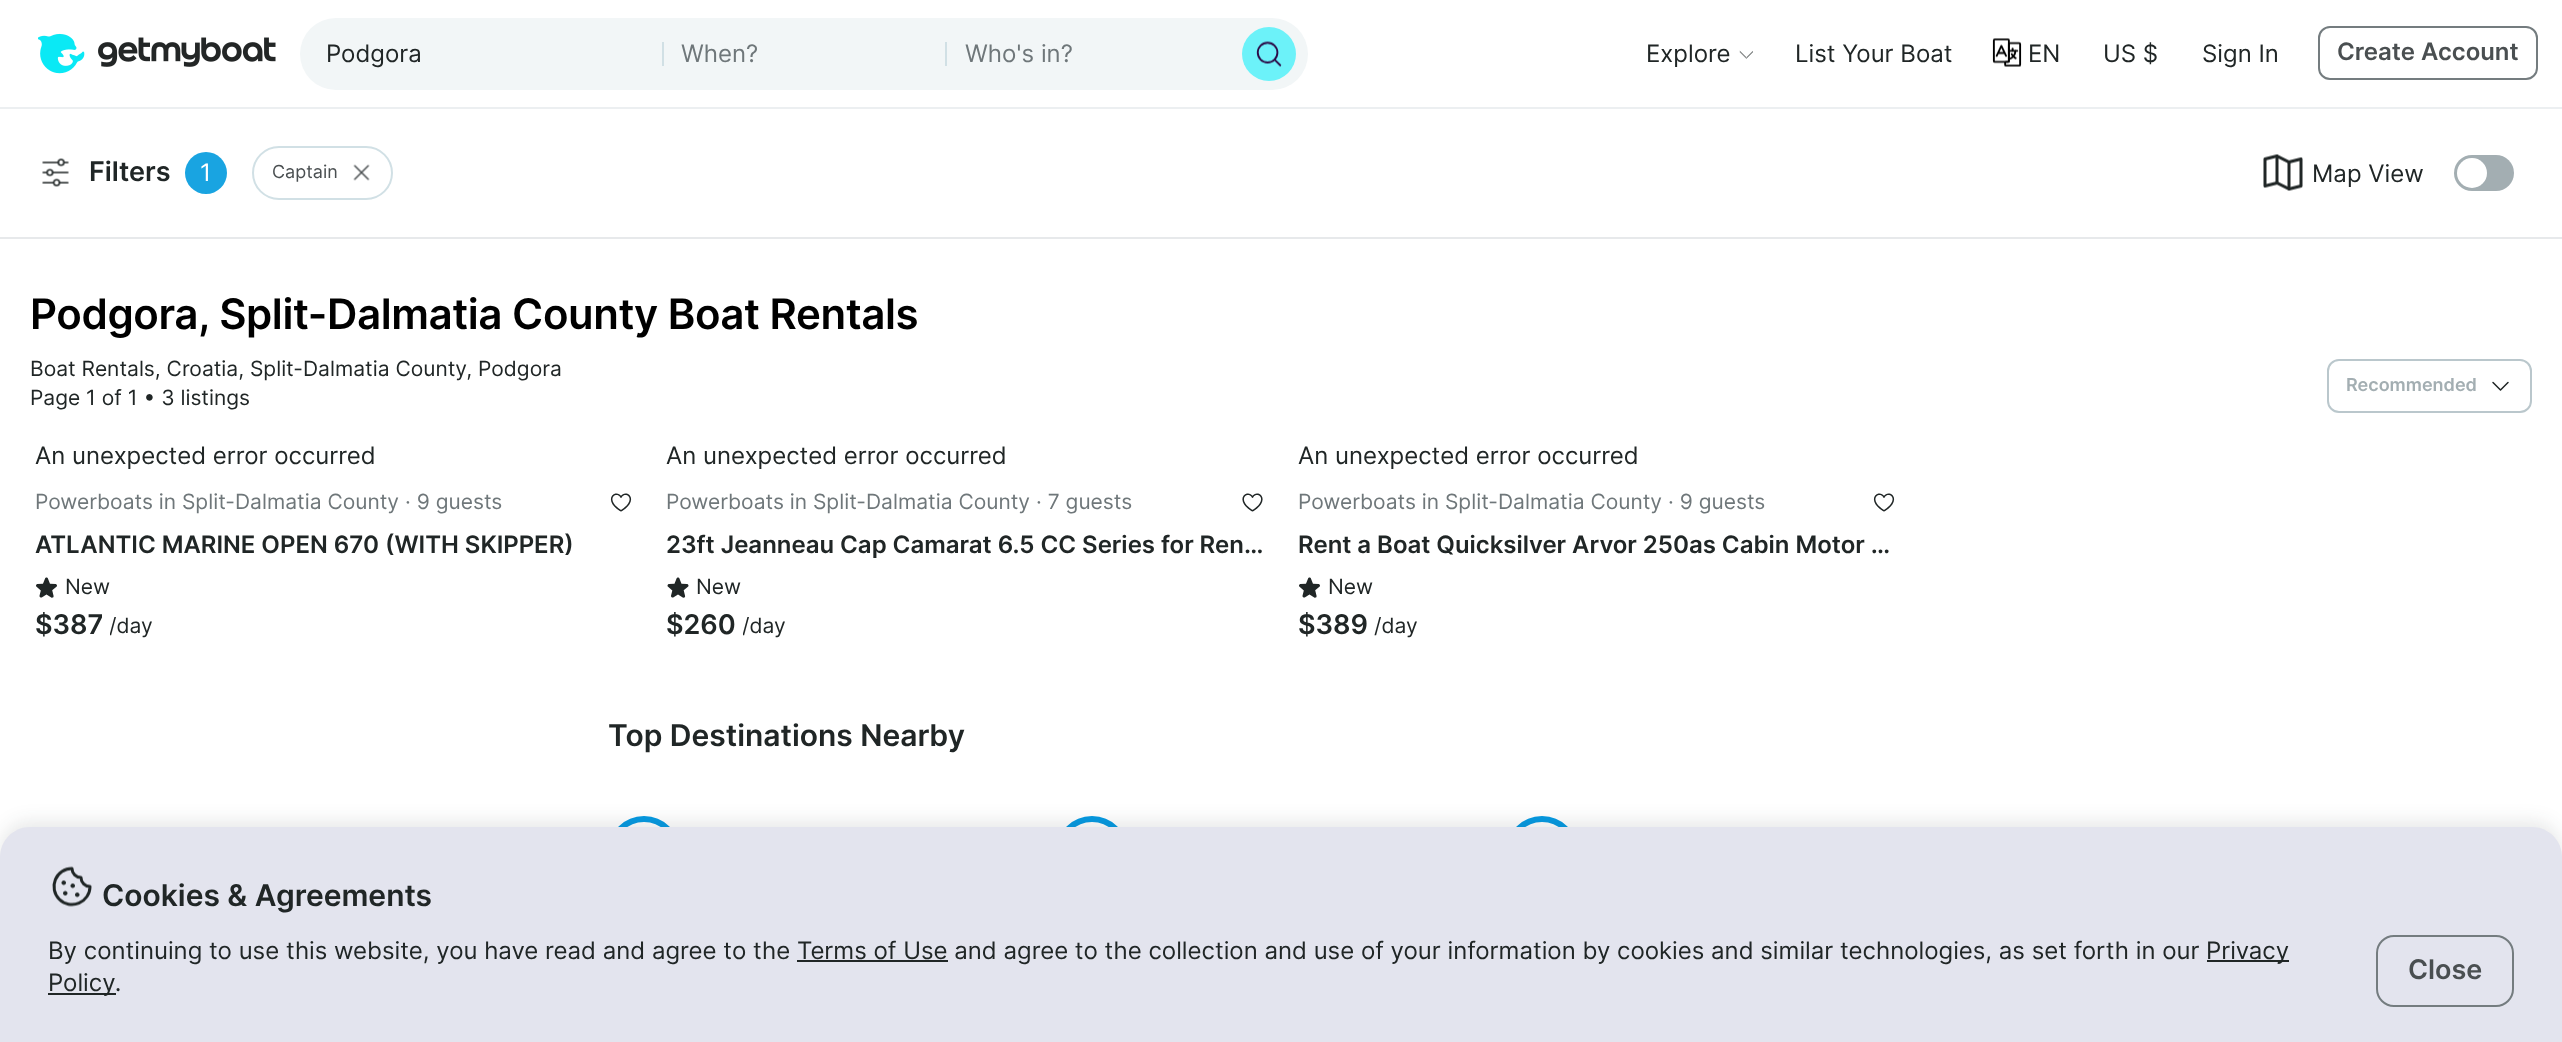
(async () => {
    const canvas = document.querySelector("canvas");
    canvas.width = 2562;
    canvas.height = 1042;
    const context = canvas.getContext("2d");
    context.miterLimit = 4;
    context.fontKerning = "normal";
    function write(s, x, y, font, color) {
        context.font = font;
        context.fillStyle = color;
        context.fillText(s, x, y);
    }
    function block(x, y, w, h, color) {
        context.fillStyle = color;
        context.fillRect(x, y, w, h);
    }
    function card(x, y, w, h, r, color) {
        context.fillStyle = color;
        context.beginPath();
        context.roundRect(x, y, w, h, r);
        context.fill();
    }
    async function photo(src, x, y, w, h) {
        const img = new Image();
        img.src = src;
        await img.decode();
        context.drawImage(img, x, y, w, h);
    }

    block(0, 0, 2562, 1042, "rgb(255, 255, 255)");
    block(0, 107, 2562, 2, "rgb(236, 239, 241)");
    await photo("media/1.png", 38, 33, 238, 41);
    card(300, 18, 1008, 72, 36, "rgb(242, 246, 247)");
    write("Podgora", 326, 62, "24px Inter", "rgb(32, 38, 38)");
    block(662, 42, 2, 24, "rgb(209, 224, 229)");
    write("When?", 681, 62, "24px Inter", "rgb(111, 119, 122)");
    block(945, 42, 2, 24, "rgb(209, 224, 229)");
    write("Who's in?", 965, 62, "24px Inter", "rgb(111, 119, 122)");
    context.fillStyle = "rgb(108, 242, 249)";
    context.beginPath();
    context.arc(1269, 54, 27, 0, Math.PI * 2);
    context.fill();
    await photo("media/2.png", 1256, 41, 26, 26);
    write("Explore", 1646, 62, "24px Inter", "rgb(32, 38, 38)");
    await photo("media/3.png", 1739, 50, 14, 9);
    write("List Your Boat", 1795, 62, "24px Inter", "rgb(32, 38, 38)");
    await photo("media/4.png", 1992, 38, 30, 29);
    write("EN", 2028, 62, "24px Inter", "rgb(32, 38, 38)");
    write("US $", 2103, 62, "24px Inter", "rgb(32, 38, 38)");
    write("Sign In", 2202, 62, "24px Inter", "rgb(32, 38, 38)");
    context.beginPath();
    context.roundRect(2319, 27, 218, 52, 11);
    context.strokeStyle = "rgb(116, 124, 127)";
    context.lineWidth = 2;
    context.stroke();
    write("Create Account", 2337, 60, "600 24px Inter", "rgb(74, 79, 81)");
    block(0, 237, 2562, 2, "rgb(231, 233, 235)");
    await photo("media/5.png", 42, 158, 27, 29);
    write("Filters", 89, 181, "600 27px Inter", "rgb(32, 38, 38)");
    context.fillStyle = "rgb(25, 164, 225)";
    context.beginPath();
    context.arc(206, 173, 21, 0, Math.PI * 2);
    context.fill();
    write("1", 200, 181, "24px Inter", "rgb(255, 255, 255)");
    context.beginPath();
    context.roundRect(253, 147, 139, 52, 26);
    context.strokeStyle = "rgb(209, 224, 229)";
    context.stroke();
    write("Captain", 272, 178, "18px Inter", "rgb(74, 79, 81)");
    await photo("media/6.png", 353, 164, 17, 17);
    await photo("media/7.png", 2263, 154, 40, 37);
    write("Map View", 2312, 182, "24px Inter", "rgb(32, 38, 38)");
    card(2454, 155, 60, 36, 18, "rgb(163, 174, 178)");
    context.fillStyle = "rgb(255, 255, 255)";
    context.beginPath();
    context.arc(2472, 173, 15, 0, Math.PI * 2);
    context.fill();
    context.letterSpacing = "-0.4px";
    write("Podgora, Split-Dalmatia County Boat Rentals", 30, 329, "600 42px Inter", "rgb(0, 0, 0)");
    context.letterSpacing = "0px";
    write("Boat Rentals, Croatia, Split-Dalmatia County, Podgora", 30, 376, "21px Inter", "rgb(32, 38, 38)");
    write("Page 1 of 1 • 3 listings", 30, 405, "21px Inter", "rgb(32, 38, 38)");
    context.beginPath();
    context.roundRect(2328, 360, 203, 52, 11);
    context.strokeStyle = "rgb(186, 199, 204)";
    context.stroke();
    write("Recommended", 2346, 391, "600 18px Inter", "rgb(163, 174, 178)");
    await photo("media/8.png", 2492, 381, 17, 10);
    write("An unexpected error occurred", 35, 464, "24px Inter", "rgb(32, 38, 38)");
    write("Powerboats in Split-Dalmatia County", 35, 509, "21px Inter", "rgb(111, 119, 122)");
    write("· 9 guests", 405, 509, "21px Inter", "rgb(111, 119, 122)");
    await photo("media/9.png", 610, 493, 22, 19);
    write("ATLANTIC MARINE OPEN 670 (WITH SKIPPER)", 35, 553, "600 24px Inter", "rgb(32, 38, 38)");
    await photo("media/10.png", 36, 577, 21, 21);
    write("New", 65, 594, "21px Inter", "rgb(32, 38, 38)");
    write("$387", 35, 634, "600 27px Inter", "rgb(32, 38, 38)");
    context.save();
    context.beginPath();
    context.rect(110, 608, 43, 36);
    context.clip();
    write("/day", 109, 633, "21px Inter", "rgb(32, 38, 38)");
    context.restore();
    write("An unexpected error occurred", 666, 464, "24px Inter", "rgb(32, 38, 38)");
    write("Powerboats in Split-Dalmatia County", 666, 509, "21px Inter", "rgb(111, 119, 122)");
    write("· 7 guests", 1036, 509, "21px Inter", "rgb(111, 119, 122)");
    await photo("media/11.png", 1242, 493, 21, 19);
    write("23ft Jeanneau Cap Camarat 6.5 CC Series for Ren…", 666, 553, "600 24px Inter", "rgb(32, 38, 38)");
    await photo("media/12.png", 667, 577, 22, 21);
    write("New", 696, 594, "21px Inter", "rgb(32, 38, 38)");
    write("$260", 666, 634, "600 27px Inter", "rgb(32, 38, 38)");
    context.save();
    context.beginPath();
    context.rect(743, 608, 43, 36);
    context.clip();
    write("/day", 742, 633, "21px Inter", "rgb(32, 38, 38)");
    context.restore();
    write("An unexpected error occurred", 1298, 464, "24px Inter", "rgb(32, 38, 38)");
    write("Powerboats in Split-Dalmatia County", 1298, 509, "21px Inter", "rgb(111, 119, 122)");
    write("· 9 guests", 1668, 509, "21px Inter", "rgb(111, 119, 122)");
    await photo("media/13.png", 1873, 493, 22, 19);
    write("Rent a Boat Quicksilver Arvor 250as Cabin Motor …", 1298, 553, "600 24px Inter", "rgb(32, 38, 38)");
    await photo("media/10.png", 1299, 577, 21, 21);
    write("New", 1328, 594, "21px Inter", "rgb(32, 38, 38)");
    write("$389", 1298, 634, "600 27px Inter", "rgb(32, 38, 38)");
    write("/day", 1374, 633, "21px Inter", "rgb(32, 38, 38)");
    write("Top Destinations Nearby", 608, 746, "600 30px Inter", "rgb(32, 38, 38)");
    context.beginPath();
    context.arc(644, 852, 33, 0, Math.PI * 2);
    context.strokeStyle = "rgb(6, 154, 226)";
    context.lineWidth = 6;
    context.stroke();
    context.beginPath();
    context.arc(1092, 852, 33, 0, Math.PI * 2);
    context.stroke();
    context.beginPath();
    context.arc(1542, 852, 33, 0, Math.PI * 2);
    context.stroke();
    context.fillStyle = "rgba(32, 38, 38, 0.1)";
    context.filter = "blur(9px)";
    context.beginPath();
    context.roundRect(0, 821, 2562, 216, 30);
    context.fill();
    context.filter = "none";
    context.fillStyle = "rgb(227, 228, 238)";
    context.beginPath();
    context.moveTo(30, 827);
    context.lineTo(2532, 827);
    context.bezierCurveTo(2548.5, 827, 2562, 840.5, 2562, 857);
    context.lineTo(2562, 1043);
    context.lineTo(0, 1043);
    context.lineTo(0, 857);
    context.bezierCurveTo(0, 840.5, 13.5, 827, 30, 827);
    context.closePath();
    context.fill();
    await photo("media/14.png", 52, 866, 40, 41);
    write("Cookies & Agreements", 102, 906, "600 30px Inter", "rgb(32, 38, 38)");
    write("By continuing to use this website, you have read and agree to the Terms of Use and agree to the collection and use of your information by cookies and similar technologies, as set forth in our", 48, 959, "24px Inter", "rgb(32, 38, 38)");
    block(2207, 960, 82, 2, "rgb(32, 38, 38)");
    write("Privacy", 2206, 959, "24px Inter", "rgb(32, 38, 38)");
    block(797, 960, 151, 2, "rgb(32, 38, 38)");
    block(48, 993, 68, 2, "rgb(32, 38, 38)");
    write("Policy.", 48, 991, "24px Inter", "rgb(32, 38, 38)");
    context.beginPath();
    context.roundRect(2377, 936, 136, 70, 17);
    context.strokeStyle = "rgb(116, 124, 127)";
    context.lineWidth = 2;
    context.stroke();
    write("Close", 2408, 979, "600 27px Inter", "rgb(74, 79, 81)");
})();
